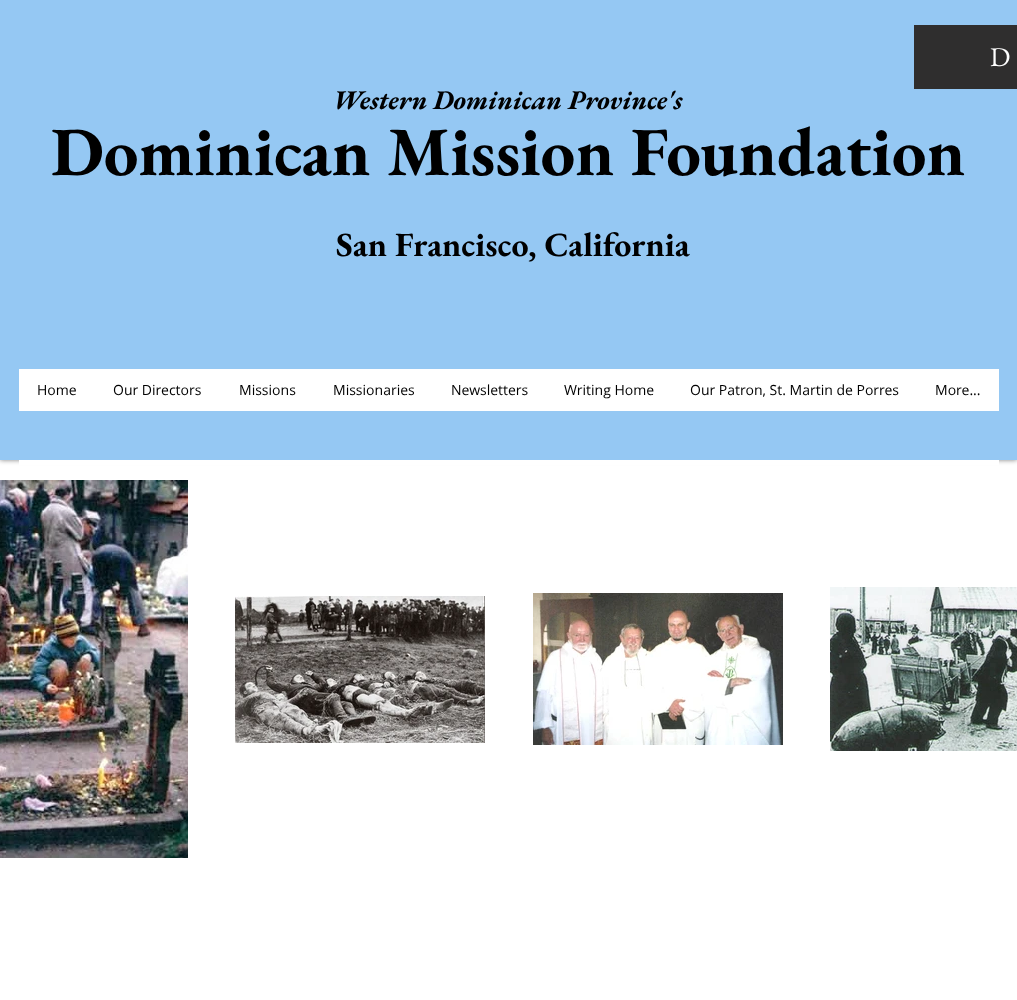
(async () => {
    const canvas = document.querySelector("canvas");
    canvas.width = 1017;
    canvas.height = 1000;
    const context = canvas.getContext("2d");
    context.miterLimit = 4;
    context.fontKerning = "normal";
    function write(s, x, y, font, color) {
        context.font = font;
        context.fillStyle = color;
        context.fillText(s, x, y);
    }
    function block(x, y, w, h, color) {
        context.fillStyle = color;
        context.fillRect(x, y, w, h);
    }
    async function photo(src, x, y, w, h) {
        const img = new Image();
        img.src = src;
        await img.decode();
        context.drawImage(img, x, y, w, h);
    }

    block(0, 0, 1017, 1000, "rgb(255, 255, 255)");
    context.fillStyle = "rgba(0, 0, 0, 0.5)";
    context.filter = "blur(2.5px)";
    context.beginPath();
    context.rect(0, 0, 1017, 460);
    context.fill();
    context.filter = "none";
    block(0, 0, 1017, 460, "rgb(149, 200, 243)");
    block(914, 25, 103, 64, "rgb(47, 46, 46)");
    write("D", 990, 66, "27px EB Garamond", "rgb(255, 255, 255)");
    write("Western Dominican Province's", 333, 109, "italic bold 27px EB Garamond", "rgb(0, 0, 0)");
    write("Dominican Mission Foundation", 51, 175, "bold 69px EB Garamond", "rgb(0, 0, 0)");
    block(19, 369, 980, 42, "rgb(255, 255, 255)");
    write("Home", 37, 395, "14px Open Sans", "rgb(0, 0, 0)");
    write("Our Directors", 113, 395, "14px Open Sans", "rgb(0, 0, 0)");
    write("Missions", 239, 395, "14px Open Sans", "rgb(0, 0, 0)");
    write("Missionaries", 333, 395, "14px Open Sans", "rgb(0, 0, 0)");
    write("Newsletters", 451, 395, "14px Open Sans", "rgb(0, 0, 0)");
    write("Writing Home", 564, 395, "14px Open Sans", "rgb(0, 0, 0)");
    write("Our Patron, St. Martin de Porres", 690, 395, "14px Open Sans", "rgb(0, 0, 0)");
    write("More...", 935, 395, "14px Open Sans", "rgb(0, 0, 0)");
    write("San Francisco, California", 336, 256, "bold 34px EB Garamond", "rgb(0, 0, 0)");
    block(19, 460, 980, 5, "rgb(255, 255, 255)");
    await photo("media/1.png", 0, 480, 188, 378);
    await photo("media/2.png", 235, 596, 250, 147);
    await photo("media/3.png", 533, 593, 250, 152);
    await photo("media/4.png", 830, 587, 187, 164);
})();
